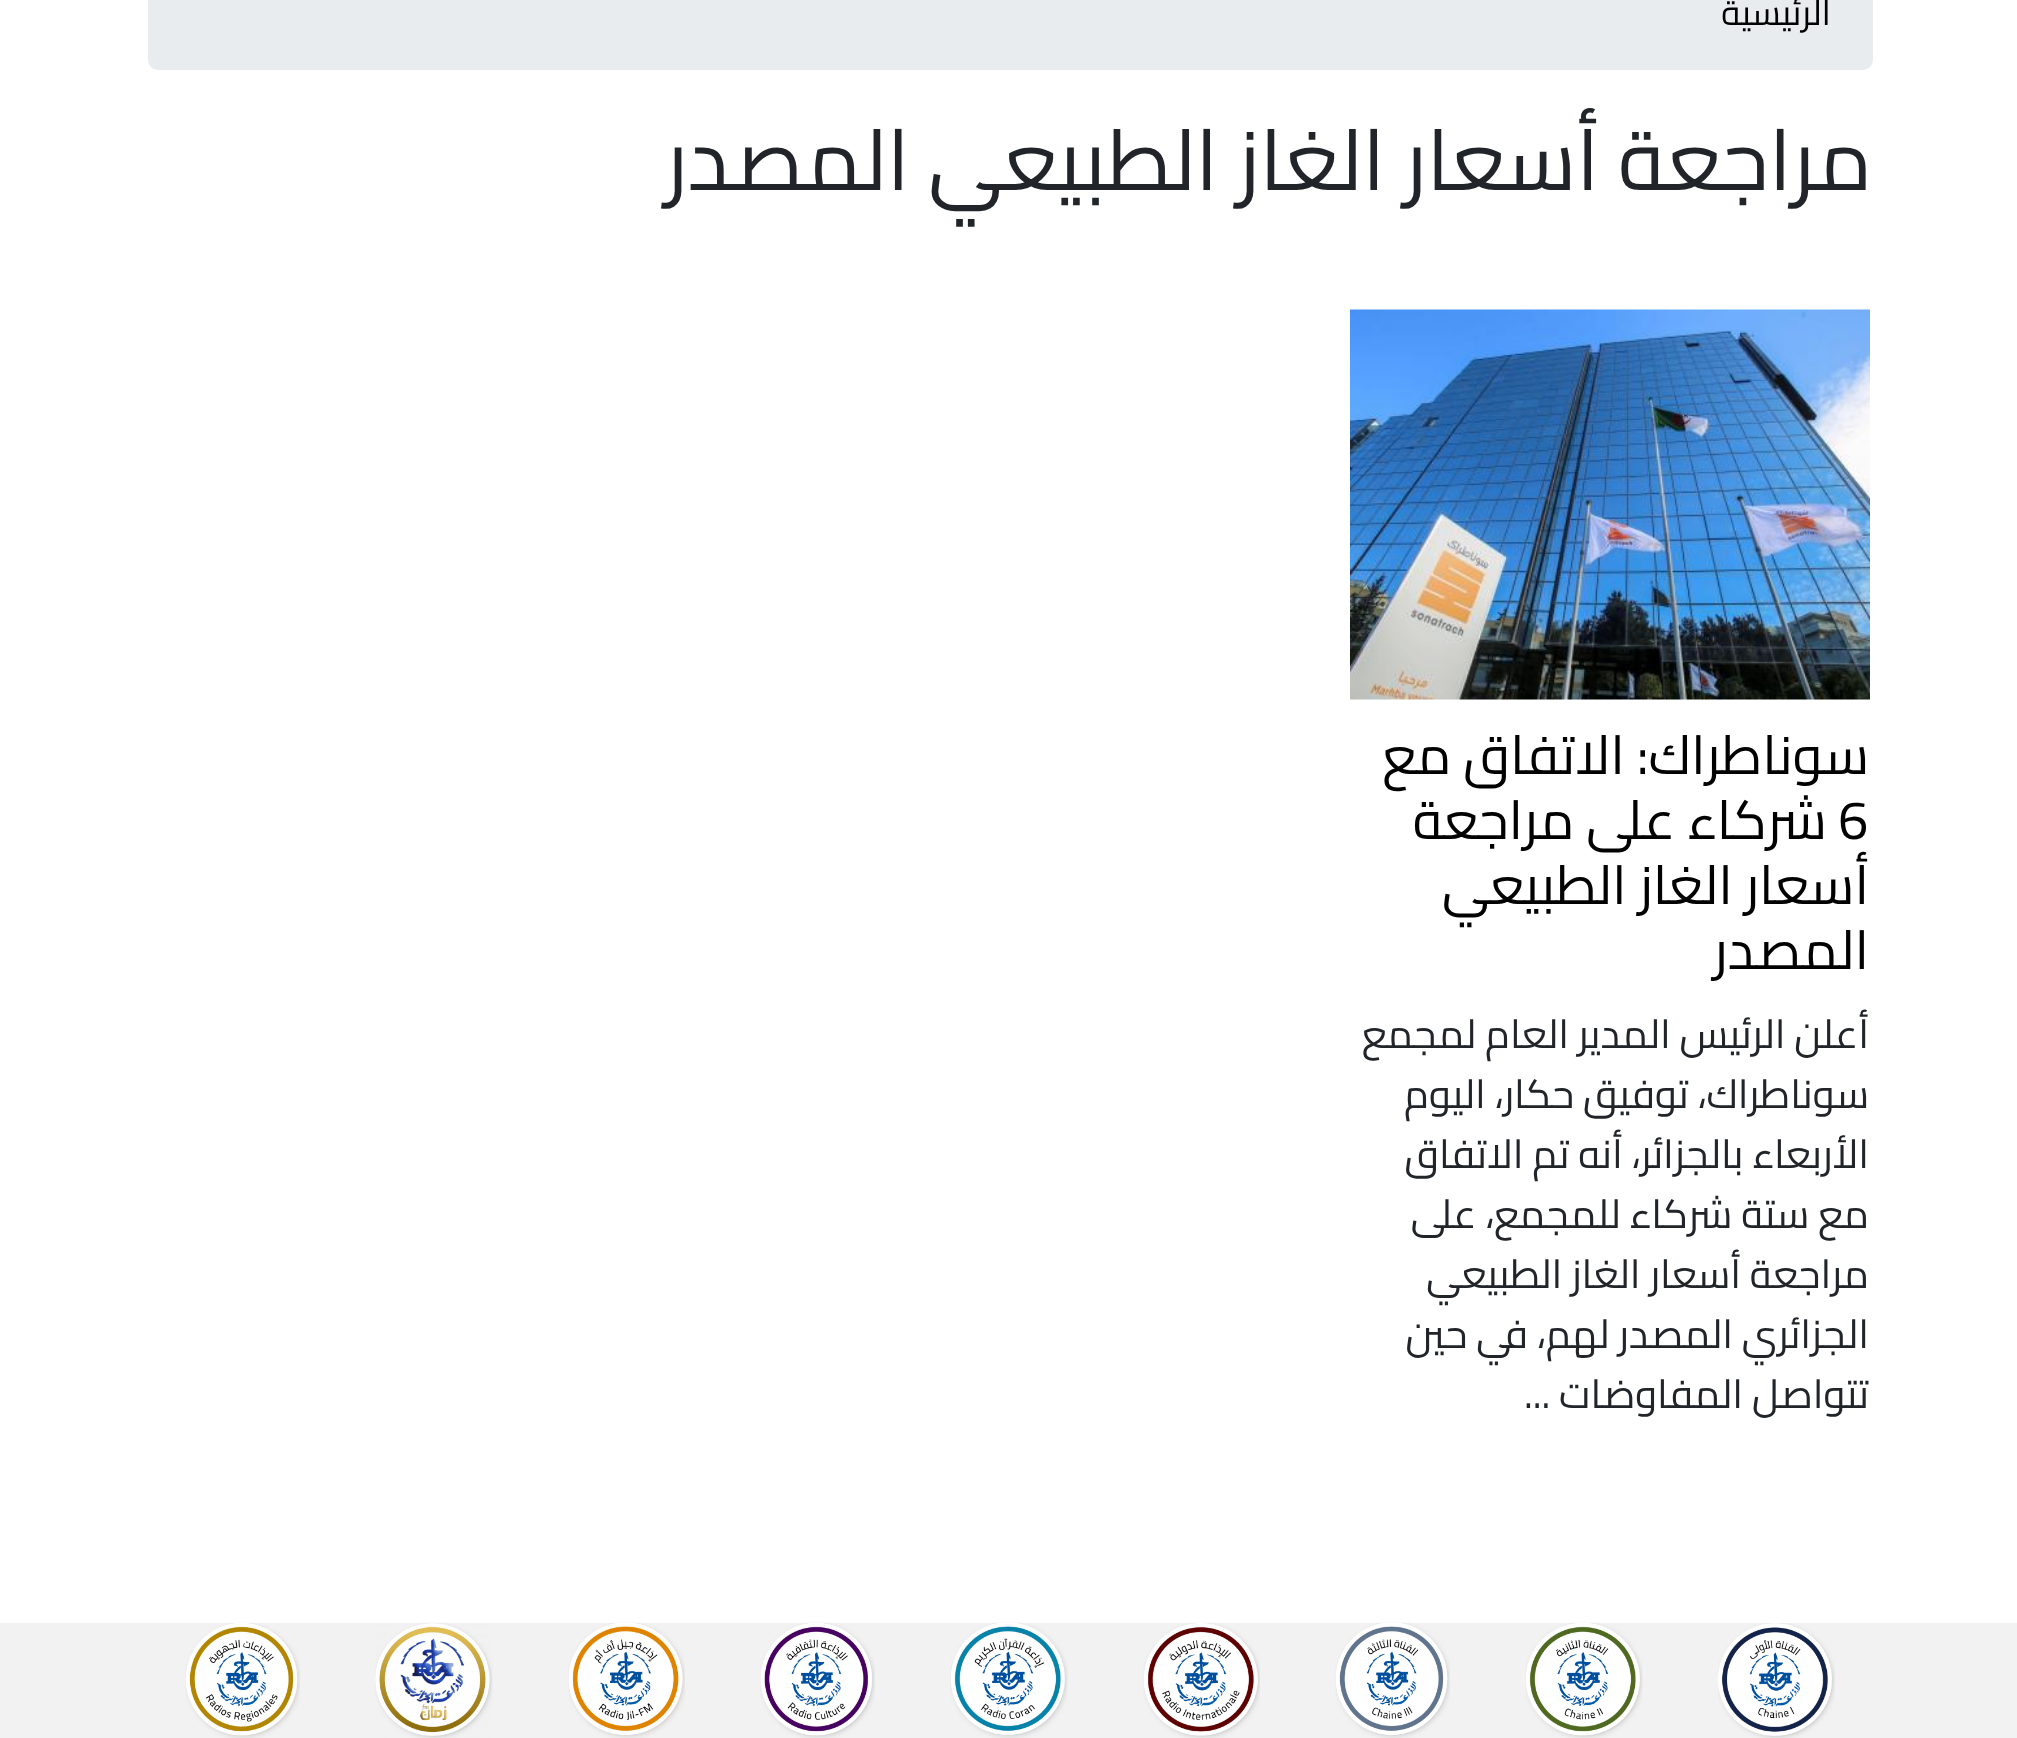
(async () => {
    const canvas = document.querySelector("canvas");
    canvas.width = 2017;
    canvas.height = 1738;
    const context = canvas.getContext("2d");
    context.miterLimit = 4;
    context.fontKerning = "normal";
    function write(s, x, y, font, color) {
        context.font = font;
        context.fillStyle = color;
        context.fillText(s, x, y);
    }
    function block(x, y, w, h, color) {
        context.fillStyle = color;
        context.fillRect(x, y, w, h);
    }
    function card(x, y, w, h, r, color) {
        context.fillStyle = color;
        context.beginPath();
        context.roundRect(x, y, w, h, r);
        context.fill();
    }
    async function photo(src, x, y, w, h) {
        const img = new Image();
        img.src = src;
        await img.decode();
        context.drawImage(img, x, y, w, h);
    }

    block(0, 0, 2017, 1738, "rgb(255, 255, 255)");
    card(148, -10, 1725, 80, 10, "rgb(233, 236, 239)");
    context.direction = "rtl";
    write("الرئيسية", 1831, 25, "35px Cairo", "rgb(1, 1, 1)");
    write("مراجعة أسعار الغاز الطبيعي المصدر", 1872, 190, "85.25px Cairo", "rgb(33, 37, 41)");
    await photo("media/1.png", 1350, 309, 520, 391);
    write("سوناطراك: الاتفاق مع", 1869, 774, "54.25px Cairo", "rgb(1, 1, 1)");
    context.direction = "ltr";
    write("6", 1838, 839, "54.25px Cairo", "rgb(1, 1, 1)");
    context.direction = "rtl";
    write("شركاء على مراجعة", 1827, 839, "54.25px Cairo", "rgb(1, 1, 1)");
    write("أسعار الغاز الطبيعي", 1869, 904, "54.25px Cairo", "rgb(1, 1, 1)");
    write("المصدر", 1869, 969, "54.25px Cairo", "rgb(1, 1, 1)");
    write("أعلن الرئيس المدير العام لمجمع", 1869, 1048, "40px Cairo", "rgb(33, 37, 41)");
    write("سوناطراك، توفيق حكار، اليوم", 1869, 1108, "40px Cairo", "rgb(33, 37, 41)");
    write("الأربعاء بالجزائر، أنه تم الاتفاق", 1869, 1168, "40px Cairo", "rgb(33, 37, 41)");
    write("مع ستة شركاء للمجمع، على", 1869, 1228, "40px Cairo", "rgb(33, 37, 41)");
    write("مراجعة أسعار الغاز الطبيعي", 1869, 1288, "40px Cairo", "rgb(33, 37, 41)");
    write("الجزائري المصدر لهم، في حين", 1869, 1348, "40px Cairo", "rgb(33, 37, 41)");
    write("تتواصل المفاوضات ...", 1869, 1408, "40px Cairo", "rgb(33, 37, 41)");
    block(0, 1623, 2017, 115, "rgb(242, 242, 242)");
    await photo("media/2.png", 1718, 1623, 117, 115);
    await photo("media/3.png", 1525, 1622, 118, 116);
    await photo("media/4.png", 1335, 1622, 115, 116);
    await photo("media/5.png", 1143, 1622, 117, 116);
    await photo("media/6.png", 950, 1622, 118, 116);
    await photo("media/7.png", 760, 1622, 115, 116);
    await photo("media/8.png", 568, 1622, 117, 116);
    await photo("media/9.png", 375, 1622, 118, 116);
    await photo("media/10.png", 185, 1622, 115, 116);
})();
